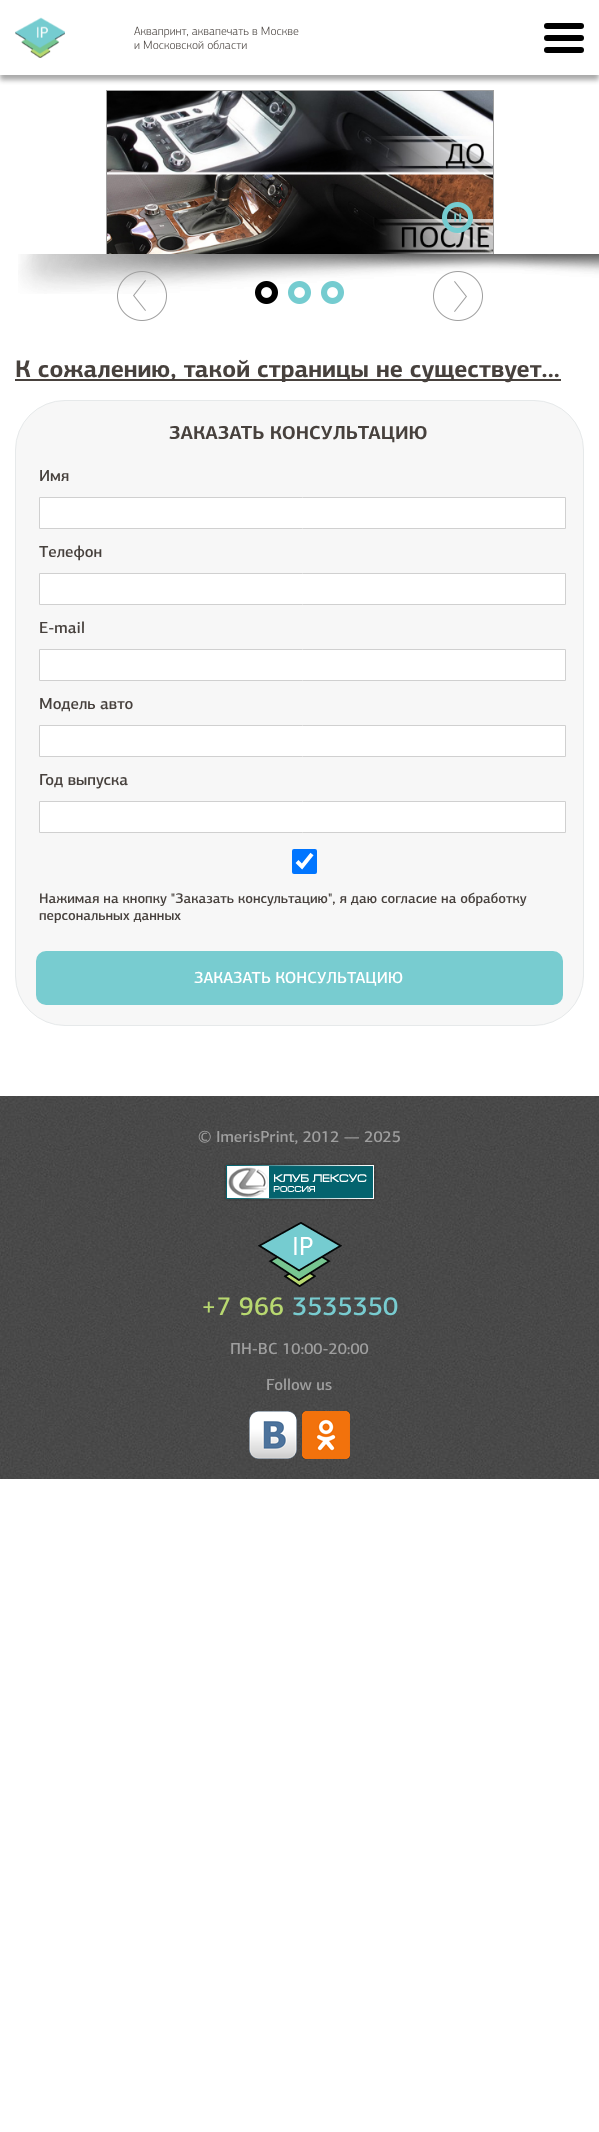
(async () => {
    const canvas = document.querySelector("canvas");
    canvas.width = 599;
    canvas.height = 2132;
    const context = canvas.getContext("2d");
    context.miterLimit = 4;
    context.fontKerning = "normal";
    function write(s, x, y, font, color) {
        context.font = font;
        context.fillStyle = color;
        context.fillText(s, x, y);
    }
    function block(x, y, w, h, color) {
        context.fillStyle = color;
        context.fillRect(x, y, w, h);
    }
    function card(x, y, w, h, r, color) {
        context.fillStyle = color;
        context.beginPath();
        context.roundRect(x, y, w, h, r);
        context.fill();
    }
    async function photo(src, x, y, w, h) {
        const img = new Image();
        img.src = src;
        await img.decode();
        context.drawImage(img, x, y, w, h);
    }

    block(0, 0, 599, 2132, "rgb(255, 255, 255)");
    context.save();
    context.beginPath();
    context.rect(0, 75, 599, 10);
    context.clip();
    context.fillStyle = "rgb(168, 168, 168)";
    context.filter = "blur(2.5px)";
    context.beginPath();
    context.rect(0, 5, 599, 75);
    context.fill();
    context.filter = "none";
    context.restore();
    await photo("media/1.png", 15, 17, 50, 41);
    write("Аквапринт, аквапечать в Москве", 134, 35, "italic 300 12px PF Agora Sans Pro", "rgb(71, 65, 61)");
    write("и Московской области", 134, 49, "italic 300 12px PF Agora Sans Pro", "rgb(71, 65, 61)");
    card(544, 23, 40, 6, 3, "rgb(0, 0, 0)");
    card(544, 35, 40, 6, 3, "rgb(0, 0, 0)");
    card(544, 47, 40, 6, 3, "rgb(0, 0, 0)");
    context.strokeStyle = "rgb(159, 159, 159)";
    context.strokeRect(106.5, 90.5, 387, 163);
    await photo("media/2.png", 107, 91, 386, 163);
    await photo("media/3.png", 442, 202, 31, 31);
    await photo("media/9.png", 18, 254, 581, 40);
    await photo("media/4.png", 117, 271, 50, 50);
    await photo("media/5.png", 255, 281, 23, 23);
    await photo("media/6.png", 288, 281, 23, 23);
    await photo("media/7.png", 321, 281, 23, 23);
    await photo("media/8.png", 433, 271, 50, 50);
    block(15, 379, 546, 2, "rgb(71, 65, 61)");
    write("К сожалению, такой страницы не существует...", 15, 377, "bold 24px PF Agora Sans Pro", "rgb(71, 65, 61)");
    context.fillStyle = "rgb(247, 247, 247)";
    context.beginPath();
    context.roundRect(15.5, 400.5, 568, 625, 49.5);
    context.fill();
    context.strokeStyle = "rgb(230, 233, 234)";
    context.stroke();
    write("ЗАКАЗАТЬ КОНСУЛЬТАЦИЮ", 169, 439, "bold 18.75px PF Agora Sans Pro", "rgb(71, 65, 61)");
    write("Имя", 39, 481, "500 16px PF Agora Sans Pro", "rgb(71, 65, 61)");
    context.fillStyle = "rgb(255, 255, 255)";
    context.beginPath();
    context.rect(39.5, 497.5, 526, 31);
    context.fill();
    context.strokeStyle = "rgb(208, 208, 208)";
    context.stroke();
    write("Телефон", 39, 557, "500 16px PF Agora Sans Pro", "rgb(71, 65, 61)");
    context.fillStyle = "rgb(255, 255, 255)";
    context.beginPath();
    context.rect(39.5, 573.5, 526, 31);
    context.fill();
    context.stroke();
    write("E-mail", 39, 633, "500 16px PF Agora Sans Pro", "rgb(71, 65, 61)");
    context.fillStyle = "rgb(255, 255, 255)";
    context.beginPath();
    context.rect(39.5, 649.5, 526, 31);
    context.fill();
    context.stroke();
    write("Модель авто", 39, 709, "500 16px PF Agora Sans Pro", "rgb(71, 65, 61)");
    context.fillStyle = "rgb(255, 255, 255)";
    context.beginPath();
    context.rect(39.5, 725.5, 526, 31);
    context.fill();
    context.stroke();
    write("Год выпуска", 39, 785, "500 16px PF Agora Sans Pro", "rgb(71, 65, 61)");
    context.fillStyle = "rgb(255, 255, 255)";
    context.beginPath();
    context.rect(39.5, 801.5, 526, 31);
    context.fill();
    context.stroke();
    card(292, 849, 25, 25, 2, "rgb(0, 117, 255)");
    context.beginPath();
    context.moveTo(297, 861.5);
    context.lineTo(302, 866.5);
    context.lineTo(312, 854);
    context.strokeStyle = "rgb(255, 255, 255)";
    context.lineWidth = 4;
    context.stroke();
    write("Нажимая на кнопку \"Заказать консультацию\", я даю согласие на обработку", 39, 903, "500 14px PF Agora Sans Pro", "rgb(71, 65, 61)");
    write("персональных данных", 39, 920, "500 14px PF Agora Sans Pro", "rgb(71, 65, 61)");
    card(36, 951, 527, 54, 10, "rgb(120, 204, 208)");
    write("ЗАКАЗАТЬ КОНСУЛЬТАЦИЮ", 194, 983, "500 16px PF Agora Sans Pro", "rgb(255, 255, 255)");
    await photo("media/10.png", 0, 1096, 599, 383);
    write("© ImerisPrint, 2012 — 2025", 198, 1142, "500 16px PF Agora Sans Pro", "rgb(159, 159, 159)");
    await photo("media/11.png", 224, 1163, 152, 38);
    await photo("media/12.png", 258, 1222, 84, 65);
    write("+7 966", 201, 1315, "500 26.5px PF Agora Sans Pro", "rgb(184, 216, 112)");
    write("3535350", 292, 1315, "500 26.5px PF Agora Sans Pro", "rgb(120, 204, 208)");
    write("ПН-ВС 10:00-20:00", 230, 1354, "500 16px PF Agora Sans Pro", "rgb(159, 159, 159)");
    write("Follow us", 266, 1390, "500 16px PF Agora Sans Pro", "rgb(159, 159, 159)");
    await photo("media/13.png", 249, 1411, 48, 48);
    await photo("media/14.png", 302, 1411, 48, 48);
})();
